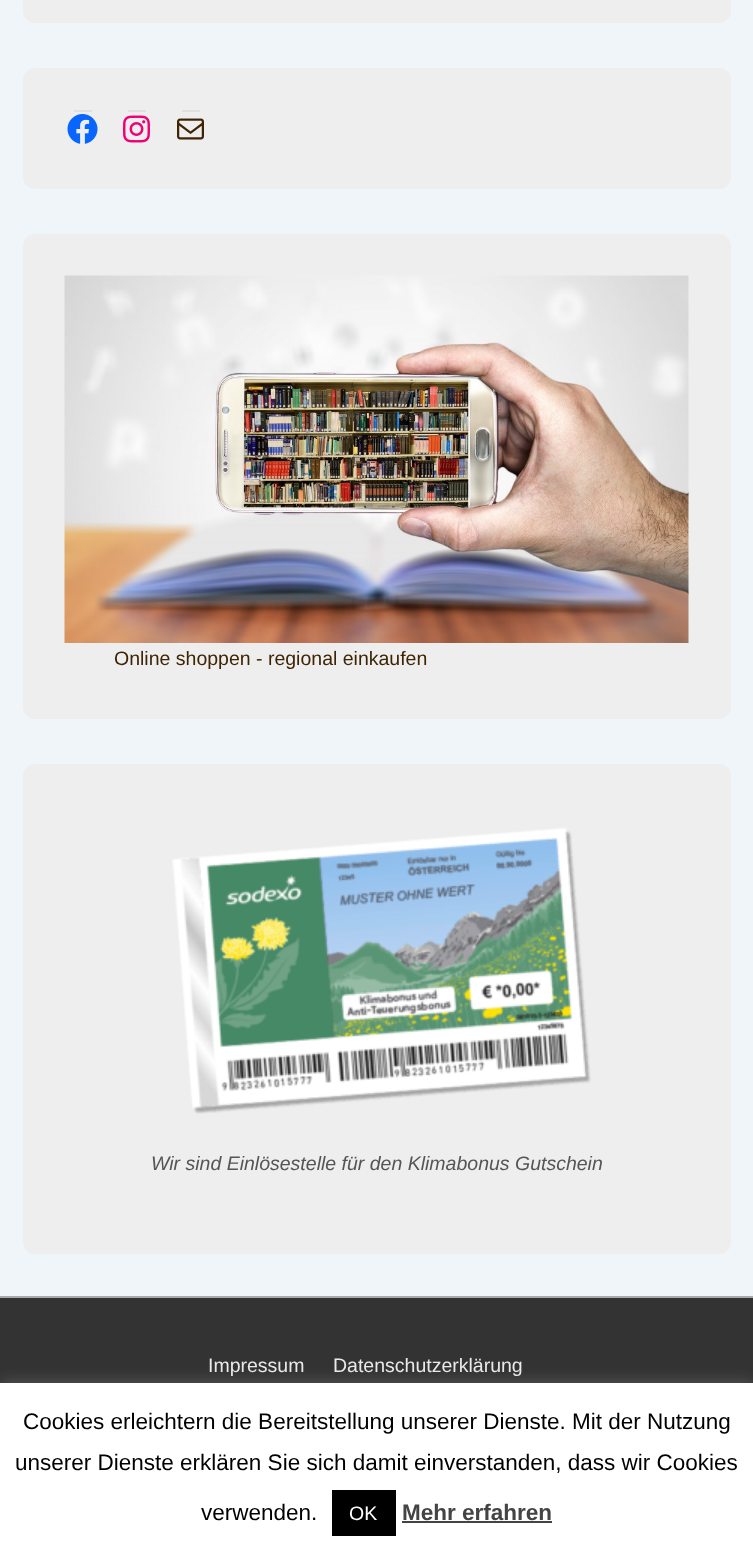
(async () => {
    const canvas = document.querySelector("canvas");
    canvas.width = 753;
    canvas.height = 1554;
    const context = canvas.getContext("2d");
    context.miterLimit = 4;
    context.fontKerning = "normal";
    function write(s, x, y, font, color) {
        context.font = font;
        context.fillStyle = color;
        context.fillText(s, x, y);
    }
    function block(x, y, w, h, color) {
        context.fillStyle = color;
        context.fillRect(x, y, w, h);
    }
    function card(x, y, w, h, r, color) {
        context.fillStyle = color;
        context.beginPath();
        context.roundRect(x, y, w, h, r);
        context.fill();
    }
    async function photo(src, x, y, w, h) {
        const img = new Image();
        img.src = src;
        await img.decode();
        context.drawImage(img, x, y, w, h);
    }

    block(0, 0, 753, 1554, "rgb(240, 245, 250)");
    card(23, -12, 708, 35, 12, "rgb(238, 238, 238)");
    card(23, 68, 708, 121, 12, "rgb(238, 238, 238)");
    block(74, 110, 18, 2, "rgb(224, 224, 224)");
    await photo("media/1.png", 67, 114, 31, 30);
    block(128, 110, 18, 2, "rgb(224, 224, 224)");
    await photo("media/2.png", 123, 115, 27, 28);
    block(182, 110, 18, 2, "rgb(224, 224, 224)");
    await photo("media/3.png", 177, 118, 27, 22);
    card(23, 234, 708, 485, 12, "rgb(238, 238, 238)");
    await photo("media/4.png", 64, 275, 625, 368);
    write("Online shoppen - regional einkaufen", 114, 665, "19.5px Liberation Sans", "rgb(63, 36, 4)");
    card(23, 764, 708, 490, 12, "rgb(238, 238, 238)");
    await photo("media/5.png", 172, 827, 419, 287);
    write("Wir sind Einlösestelle für den Klimabonus Gutschein", 151, 1170, "italic 19.5px Liberation Sans", "rgb(85, 85, 85)");
    block(0, 1298, 753, 85, "rgb(51, 51, 51)");
    block(0, 1296, 753, 2, "rgb(170, 170, 170)");
    write("Impressum", 208, 1372, "19.5px Liberation Sans", "rgb(234, 234, 234)");
    write("Datenschutzerklärung", 333, 1372, "19.5px Liberation Sans", "rgb(234, 234, 234)");
    context.fillStyle = "rgba(172, 171, 171, 0.3)";
    context.filter = "blur(7.5px)";
    context.beginPath();
    context.rect(0, 1382, 753, 171);
    context.fill();
    context.filter = "none";
    block(0, 1383, 753, 171, "rgb(255, 255, 255)");
    write("Cookies erleichtern die Bereitstellung unserer Dienste. Mit der Nutzung", 23, 1429, "22.5px Liberation Sans", "rgb(0, 0, 0)");
    write("unserer Dienste erklären Sie sich damit einverstanden, dass wir Cookies", 15, 1470, "22.5px Liberation Sans", "rgb(0, 0, 0)");
    write("verwenden.", 201, 1520, "22.5px Liberation Sans", "rgb(0, 0, 0)");
    block(332, 1490, 64, 46, "rgb(0, 0, 0)");
    write("OK", 349, 1520, "19.5px Liberation Sans", "rgb(255, 255, 255)");
    write("Mehr erfahren", 402, 1520, "bold 22.5px Liberation Sans", "rgb(68, 68, 68)");
    block(402, 1521, 150, 2, "rgb(68, 68, 68)");
})();
